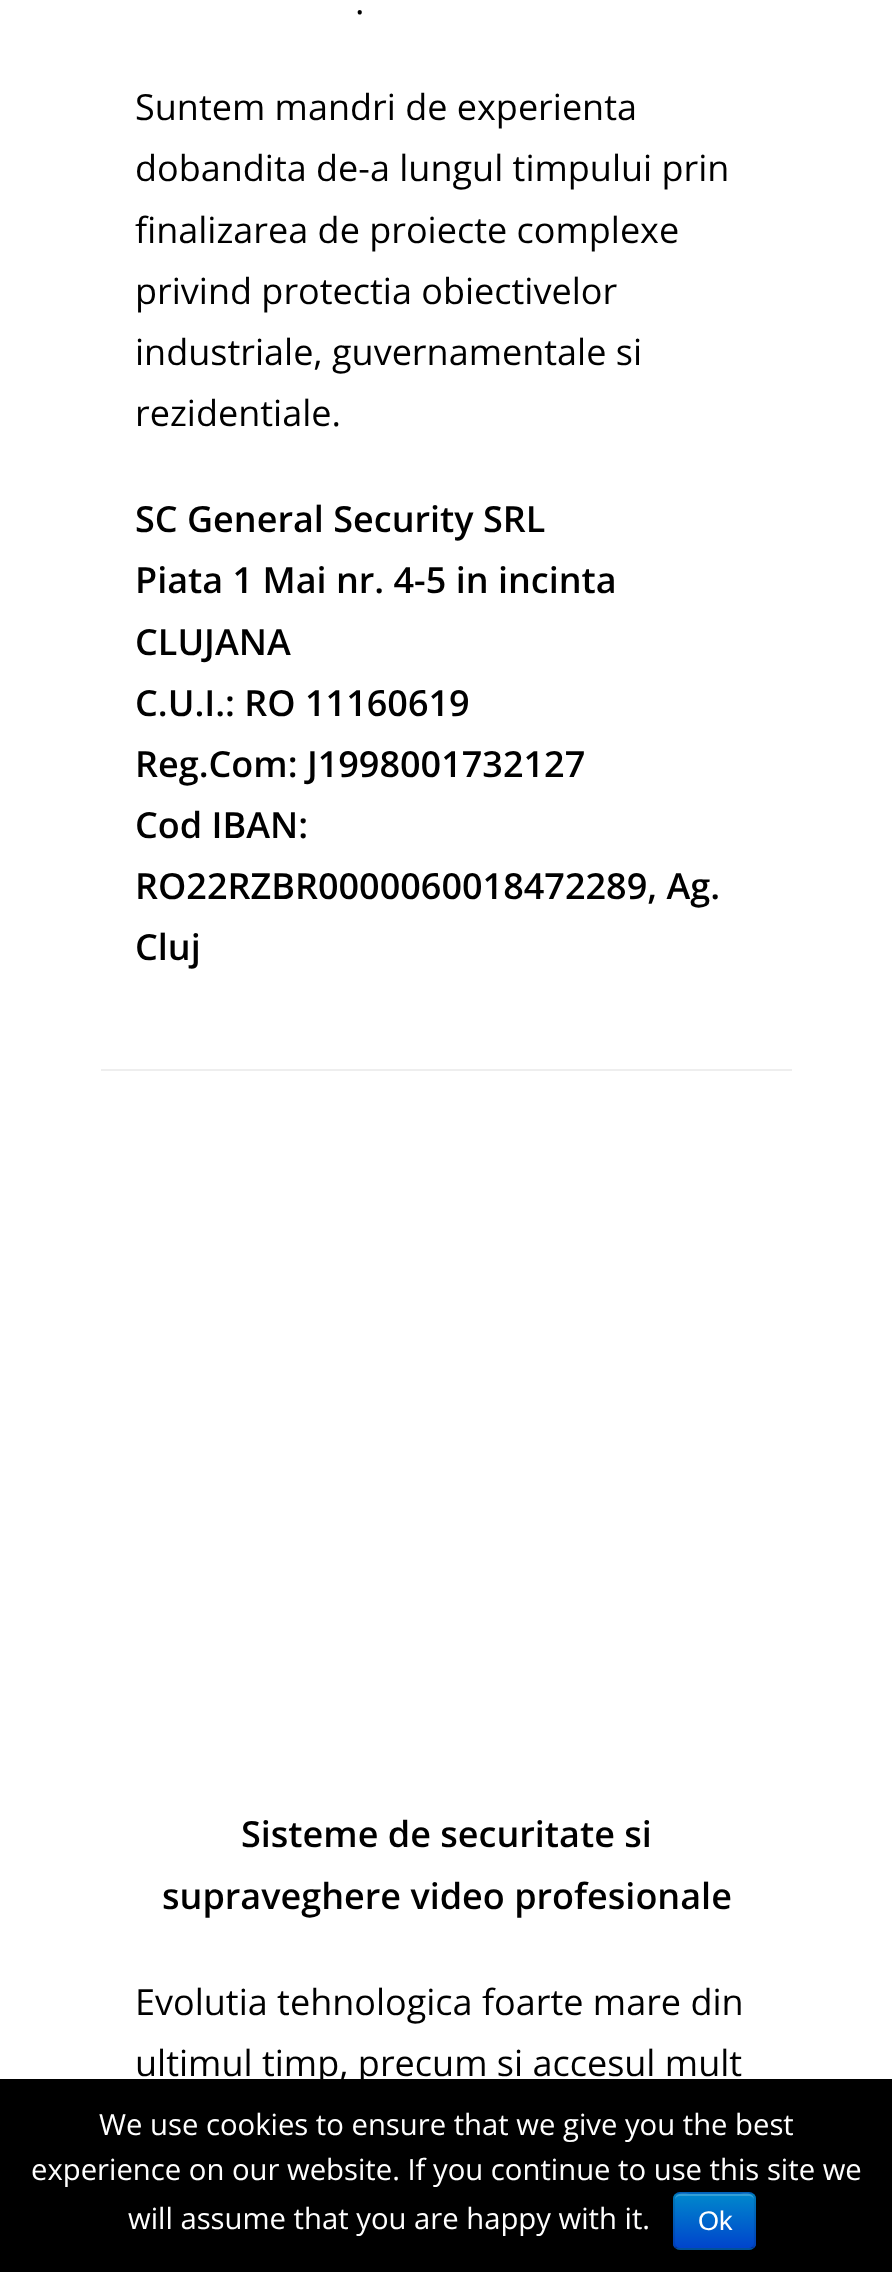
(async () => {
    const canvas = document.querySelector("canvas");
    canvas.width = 892;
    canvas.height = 2272;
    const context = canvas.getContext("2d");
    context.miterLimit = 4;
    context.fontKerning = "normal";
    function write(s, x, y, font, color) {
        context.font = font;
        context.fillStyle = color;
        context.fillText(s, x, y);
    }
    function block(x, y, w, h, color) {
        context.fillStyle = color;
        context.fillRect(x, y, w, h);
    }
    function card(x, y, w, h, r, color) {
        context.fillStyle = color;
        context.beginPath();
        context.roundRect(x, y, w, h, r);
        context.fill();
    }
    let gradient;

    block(0, 0, 892, 2272, "rgb(255, 255, 255)");
    write(".", 355, 14, "36px Open Sans", "rgb(0, 0, 0)");
    write("Suntem mandri de experienta", 135, 120, "36px Open Sans", "rgb(0, 0, 0)");
    write("dobandita de-a lungul timpului prin", 135, 181, "36px Open Sans", "rgb(0, 0, 0)");
    write("finalizarea de proiecte complexe", 135, 243, "36px Open Sans", "rgb(0, 0, 0)");
    write("privind protectia obiectivelor", 135, 304, "36px Open Sans", "rgb(0, 0, 0)");
    write("industriale, guvernamentale si", 135, 365, "36px Open Sans", "rgb(0, 0, 0)");
    write("rezidentiale.", 135, 426, "36px Open Sans", "rgb(0, 0, 0)");
    write("SC General Security SRL", 135, 532, "600 36px Open Sans", "rgb(0, 0, 0)");
    write("Piata 1 Mai nr. 4-5 in incinta", 135, 593, "600 36px Open Sans", "rgb(0, 0, 0)");
    write("CLUJANA", 135, 655, "600 36px Open Sans", "rgb(0, 0, 0)");
    write("C.U.I.: RO 11160619", 135, 716, "600 36px Open Sans", "rgb(0, 0, 0)");
    write("Reg.Com: J1998001732127", 135, 777, "600 36px Open Sans", "rgb(0, 0, 0)");
    write("Cod IBAN:", 135, 838, "600 36px Open Sans", "rgb(0, 0, 0)");
    write("RO22RZBR0000060018472289, Ag.", 135, 899, "600 36px Open Sans", "rgb(0, 0, 0)");
    write("Cluj", 135, 960, "600 36px Open Sans", "rgb(0, 0, 0)");
    block(101, 1069, 691, 2, "rgb(238, 238, 238)");
    write("Sisteme de securitate si", 241, 1847, "600 36px Open Sans", "rgb(0, 0, 0)");
    write("supraveghere video profesionale", 162, 1909, "600 36px Open Sans", "rgb(0, 0, 0)");
    write("Evolutia tehnologica foarte mare din", 135, 2015, "36px Open Sans", "rgb(0, 0, 0)");
    write("ultimul timp, precum si accesul mult", 135, 2076, "36px Open Sans", "rgb(0, 0, 0)");
    block(0, 2079, 892, 193, "rgb(0, 0, 0)");
    write("We use cookies to ensure that we give you the best", 99, 2135, "29.25px Open Sans", "rgb(255, 255, 255)");
    write("experience on our website. If you continue to use this site we", 31, 2180, "29.25px Open Sans", "rgb(255, 255, 255)");
    write("will assume that you are happy with it.", 128, 2229, "29.25px Open Sans", "rgb(255, 255, 255)");
    card(673, 2192, 83, 58, 7, "rgb(0, 109, 204)");
    context.save();
    context.beginPath();
    context.roundRect(673, 2192, 83, 58, 7);
    context.clip();
    gradient = context.createLinearGradient(714, 2194, 714, 2248);
    gradient.addColorStop(0, "rgb(0, 136, 204)");
    gradient.addColorStop(1, "rgb(0, 68, 204)");
    context.fillStyle = gradient;
    context.fillRect(673, 2194, 83, 54);
    context.restore();
    context.fillStyle = "rgba(255, 255, 255, 0.2)";
    context.beginPath();
    context.moveTo(680, 2196);
    context.lineTo(749, 2196);
    context.bezierCurveTo(752, 2196, 754, 2198, 754, 2200);
    context.bezierCurveTo(754, 2191, 743, 2194, 738, 2194);
    context.lineTo(692, 2194);
    context.bezierCurveTo(686, 2194, 675, 2191, 675, 2200);
    context.bezierCurveTo(675, 2198, 677, 2196, 680, 2196);
    context.closePath();
    context.fill();
    context.beginPath();
    context.moveTo(753, 2247);
    context.bezierCurveTo(752, 2248.5, 750.5, 2249, 749, 2249);
    context.lineTo(679.5, 2249);
    context.bezierCurveTo(678, 2249, 676.5, 2248.5, 675.5, 2247);
    context.strokeStyle = "rgba(0, 0, 0, 0.25)";
    context.lineWidth = 2.2;
    context.stroke();
    context.beginPath();
    context.moveTo(675.5, 2247);
    context.bezierCurveTo(674.5, 2246, 674, 2244.5, 674, 2243);
    context.lineTo(674, 2198);
    context.bezierCurveTo(674, 2197, 674.5, 2195.5, 675.5, 2194.5);
    context.bezierCurveTo(676.5, 2193, 678, 2192.5, 679.5, 2192.5);
    context.lineTo(749, 2192.5);
    context.bezierCurveTo(750.5, 2192.5, 752, 2193, 753, 2194.5);
    context.bezierCurveTo(754.5, 2195.5, 755, 2197, 755, 2198);
    context.lineTo(755, 2243);
    context.bezierCurveTo(755, 2244.5, 754.5, 2246, 753, 2247);
    context.strokeStyle = "rgba(0, 0, 0, 0.1)";
    context.stroke();
    write("Ok", 698, 2230, "27px Liberation Sans", "rgb(255, 255, 255)");
})();
